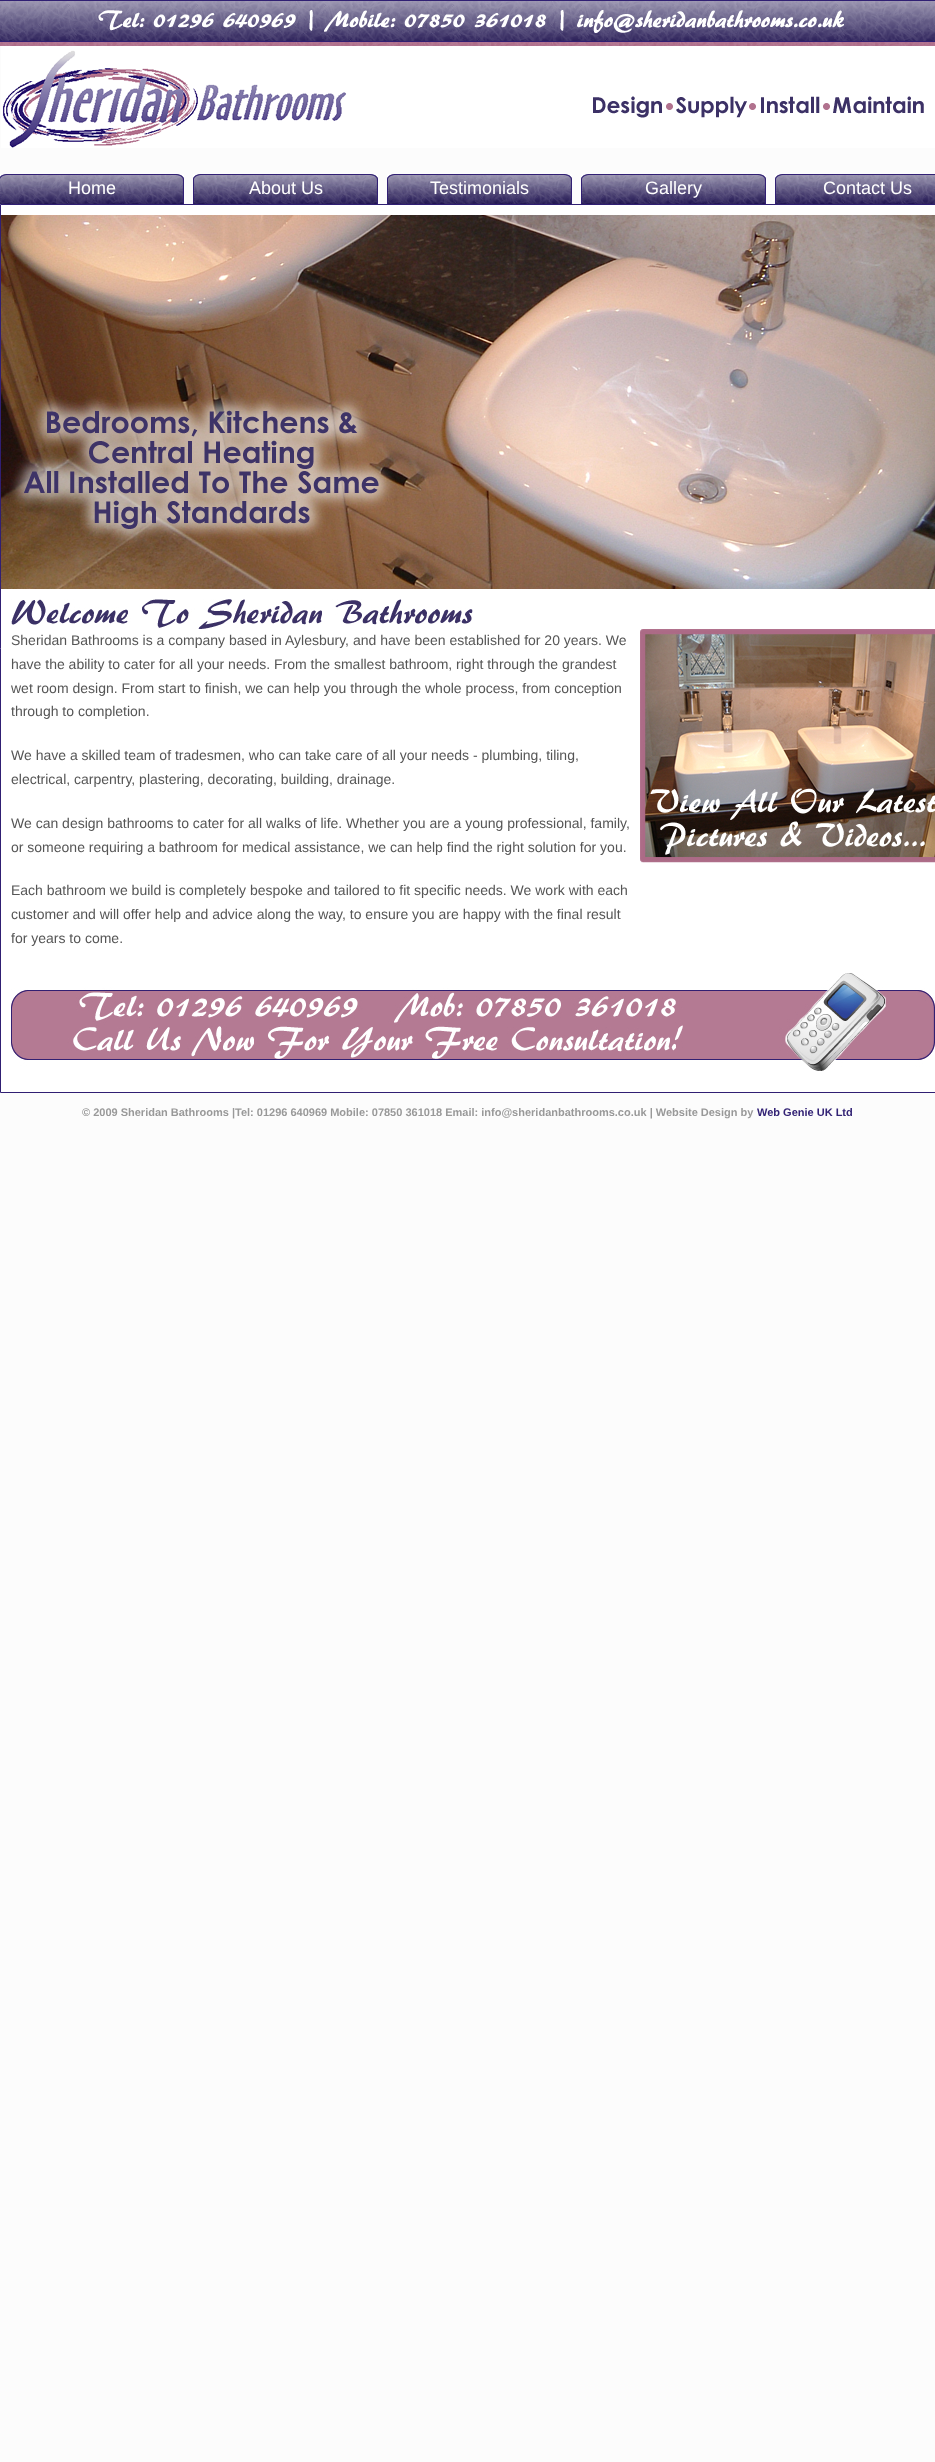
(async () => {
    const canvas = document.querySelector("canvas");
    canvas.width = 935;
    canvas.height = 2462;
    const context = canvas.getContext("2d");
    context.miterLimit = 4;
    context.fontKerning = "normal";
    function write(s, x, y, font, color) {
        context.font = font;
        context.fillStyle = color;
        context.fillText(s, x, y);
    }
    function block(x, y, w, h, color) {
        context.fillStyle = color;
        context.fillRect(x, y, w, h);
    }
    async function photo(src, x, y, w, h) {
        const img = new Image();
        img.src = src;
        await img.decode();
        context.drawImage(img, x, y, w, h);
    }

    block(0, 0, 935, 2462, "rgb(252, 252, 252)");
    await photo("media/1.png", 0, 0, 935, 46);
    await photo("media/2.png", 1, 1, 934, 147);
    await photo("media/3.png", 0, 174, 184, 30);
    write("Home", 68, 194, "18px Liberation Sans", "rgb(255, 255, 255)");
    await photo("media/4.png", 193, 174, 185, 30);
    write("About Us", 249, 194, "18px Liberation Sans", "rgb(255, 255, 255)");
    await photo("media/4.png", 387, 174, 185, 30);
    write("Testimonials", 430, 194, "18px Liberation Sans", "rgb(255, 255, 255)");
    await photo("media/4.png", 581, 174, 185, 30);
    write("Gallery", 645, 194, "18px Liberation Sans", "rgb(255, 255, 255)");
    await photo("media/5.png", 775, 174, 160, 30);
    write("Contact Us", 823, 194, "18px Liberation Sans", "rgb(255, 255, 255)");
    context.beginPath();
    context.rect(0.5, 204.5, 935, 888);
    context.fill();
    context.strokeStyle = "rgb(48, 31, 115)";
    context.stroke();
    await photo("media/6.png", 1, 215, 934, 374);
    await photo("media/7.png", 1, 215, 934, 374);
    await photo("media/8.png", 11, 599, 462, 30);
    write("Sheridan Bathrooms is a company based in Aylesbury, and have been established for 20 years. We", 11, 645, "14px Liberation Sans", "rgb(85, 85, 85)");
    write("have the ability to cater for all your needs. From the smallest bathroom, right through the grandest", 11, 669, "14px Liberation Sans", "rgb(85, 85, 85)");
    write("wet room design. From start to finish, we can help you through the whole process, from conception", 11, 693, "14px Liberation Sans", "rgb(85, 85, 85)");
    write("through to completion.", 11, 716, "14px Liberation Sans", "rgb(85, 85, 85)");
    write("We have a skilled team of tradesmen, who can take care of all your needs - plumbing, tiling,", 11, 760, "14px Liberation Sans", "rgb(85, 85, 85)");
    write("electrical, carpentry, plastering, decorating, building, drainage.", 11, 784, "14px Liberation Sans", "rgb(85, 85, 85)");
    write("We can design bathrooms to cater for all walks of life. Whether you are a young professional, family,", 11, 828, "14px Liberation Sans", "rgb(85, 85, 85)");
    write("or someone requiring a bathroom for medical assistance, we can help find the right solution for you.", 11, 852, "14px Liberation Sans", "rgb(85, 85, 85)");
    write("Each bathroom we build is completely bespoke and tailored to fit specific needs. We work with each", 11, 895, "14px Liberation Sans", "rgb(85, 85, 85)");
    write("customer and will offer help and advice along the way, to ensure you are happy with the final result", 11, 919, "14px Liberation Sans", "rgb(85, 85, 85)");
    write("for years to come.", 11, 943, "14px Liberation Sans", "rgb(85, 85, 85)");
    await photo("media/9.png", 640, 629, 295, 234);
    await photo("media/10.png", 11, 973, 924, 98);
    write("© 2009 Sheridan Bathrooms |Tel: 01296 640969 Mobile: 07850 361018 Email: info@sheridanbathrooms.co.uk | Website Design by", 82, 1116, "bold 11px Liberation Sans", "rgb(153, 153, 153)");
    write("Web Genie UK Ltd", 757, 1116, "bold 11px Liberation Sans", "rgb(51, 35, 117)");
})();
